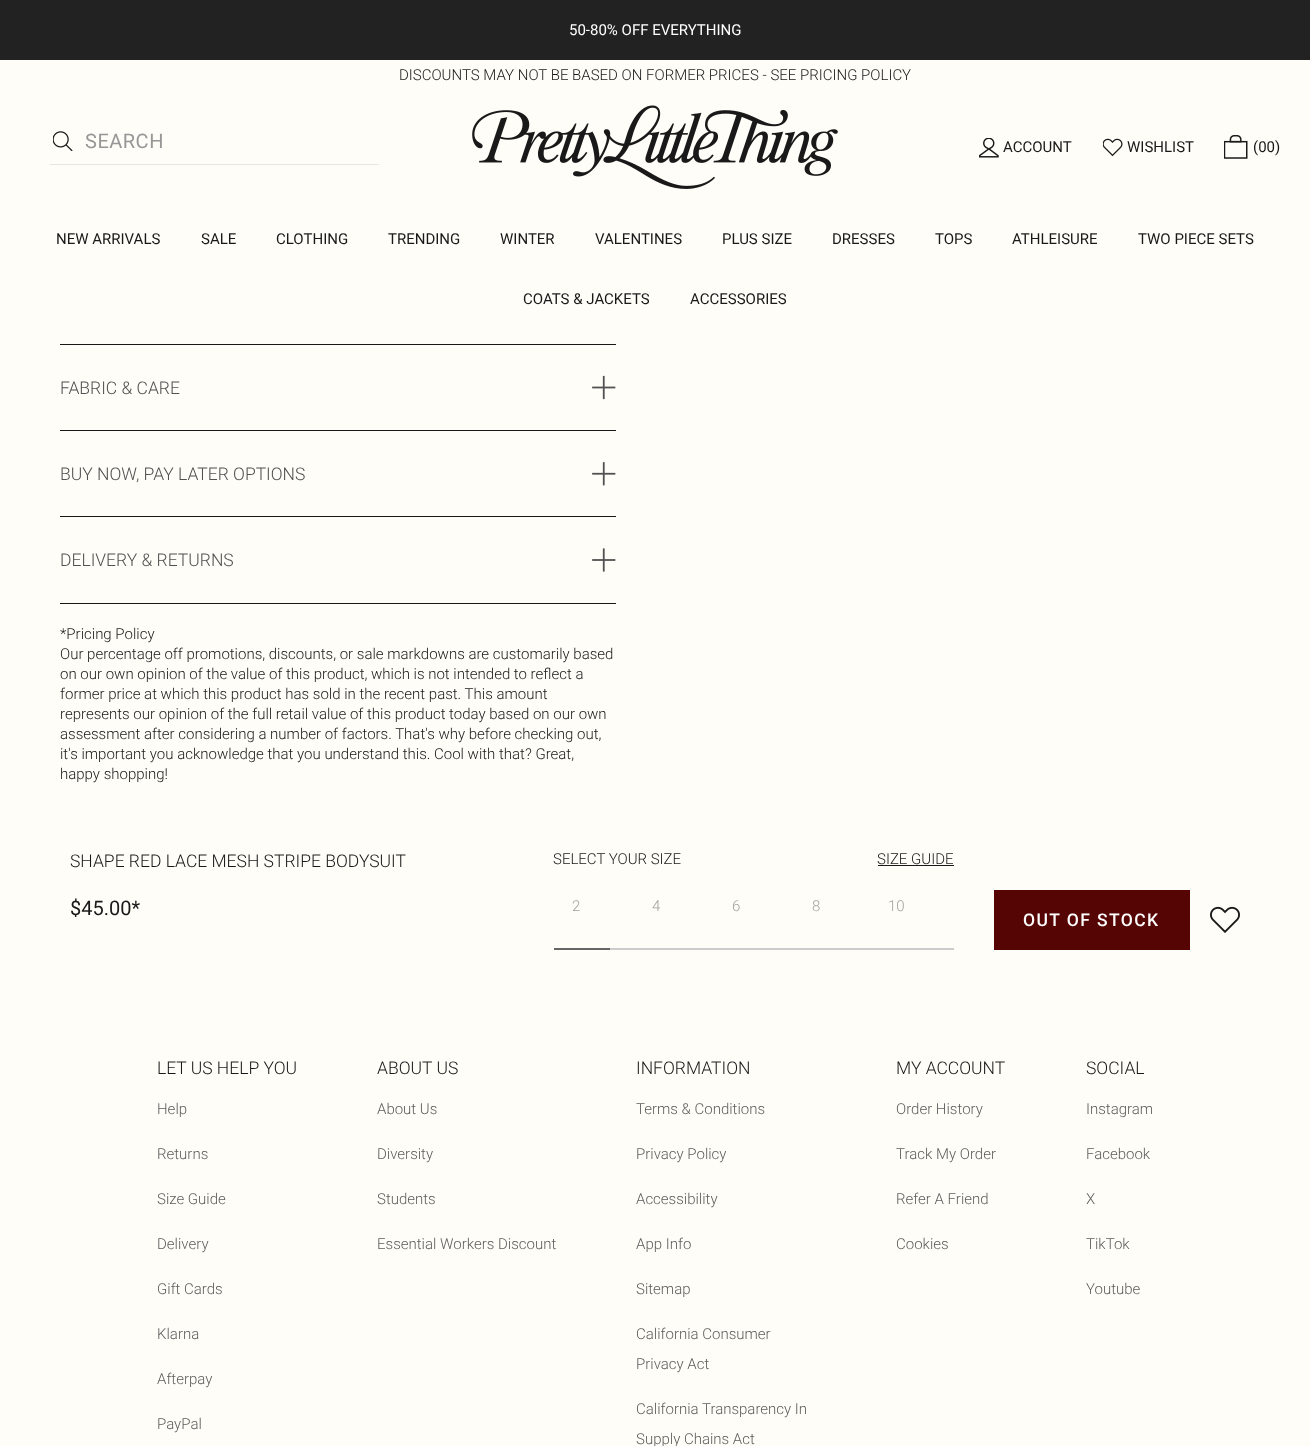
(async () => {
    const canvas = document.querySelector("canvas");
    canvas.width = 1310;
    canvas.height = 1446;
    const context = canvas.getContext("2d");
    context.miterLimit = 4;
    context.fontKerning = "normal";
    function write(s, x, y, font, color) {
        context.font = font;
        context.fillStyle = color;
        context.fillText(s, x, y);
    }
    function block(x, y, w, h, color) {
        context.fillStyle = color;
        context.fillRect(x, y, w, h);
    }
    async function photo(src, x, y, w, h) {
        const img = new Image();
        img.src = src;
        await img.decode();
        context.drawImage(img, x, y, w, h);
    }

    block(0, 0, 1310, 1446, "rgb(255, 253, 247)");
    block(0, 0, 1310, 60, "rgb(34, 34, 34)");
    write("50-80% OFF EVERYTHING", 569, 35, "15px Roboto", "rgb(255, 255, 255)");
    write("DISCOUNTS MAY NOT BE BASED ON FORMER PRICES - SEE PRICING POLICY", 399, 80, "300 15px Roboto", "rgb(25, 25, 25)");
    block(50, 164, 329, 1, "rgb(232, 230, 225)");
    await photo("media/1.png", 53, 131, 20, 20);
    context.letterSpacing = "0.5px";
    write("SEARCH", 85, 148, "20px Roboto", "rgb(151, 151, 151)");
    await photo("media/2.png", 472, 105, 366, 84);
    await photo("media/3.png", 979, 138, 20, 20);
    context.letterSpacing = "0px";
    write("ACCOUNT", 1003, 152, "15px Roboto", "rgb(25, 25, 25)");
    await photo("media/4.png", 1103, 138, 20, 19);
    write("WISHLIST", 1127, 152, "15px Roboto", "rgb(25, 25, 25)");
    await photo("media/5.png", 1224, 135, 24, 24);
    write("(00)", 1253, 152, "15px Roboto", "rgb(25, 25, 25)");
    write("NEW ARRIVALS", 56, 244, "15px Roboto", "rgb(25, 25, 25)");
    write("SALE", 201, 244, "15px Roboto", "rgb(25, 25, 25)");
    write("CLOTHING", 276, 244, "15px Roboto", "rgb(25, 25, 25)");
    write("TRENDING", 388, 244, "15px Roboto", "rgb(25, 25, 25)");
    write("WINTER", 500, 244, "15px Roboto", "rgb(25, 25, 25)");
    write("VALENTINES", 595, 244, "15px Roboto", "rgb(25, 25, 25)");
    write("PLUS SIZE", 722, 244, "15px Roboto", "rgb(25, 25, 25)");
    write("DRESSES", 832, 244, "15px Roboto", "rgb(25, 25, 25)");
    write("TOPS", 935, 244, "15px Roboto", "rgb(25, 25, 25)");
    write("ATHLEISURE", 1012, 244, "15px Roboto", "rgb(25, 25, 25)");
    write("TWO PIECE SETS", 1138, 244, "15px Roboto", "rgb(25, 25, 25)");
    write("COATS & JACKETS", 523, 304, "15px Roboto", "rgb(25, 25, 25)");
    write("ACCESSORIES", 690, 304, "15px Roboto", "rgb(25, 25, 25)");
    block(60, 344, 556, 1, "rgb(25, 25, 25)");
    write("FABRIC & CARE", 60, 394, "300 17.5px Roboto", "rgb(81, 81, 81)");
    await photo("media/6.png", 592, 375, 24, 25);
    block(60, 430, 556, 1, "rgb(25, 25, 25)");
    write("BUY NOW, PAY LATER OPTIONS", 60, 480, "300 17.5px Roboto", "rgb(81, 81, 81)");
    await photo("media/7.png", 592, 462, 24, 24);
    block(60, 516, 556, 1, "rgb(25, 25, 25)");
    block(60, 603, 556, 1, "rgb(25, 25, 25)");
    write("DELIVERY & RETURNS", 60, 566, "300 17.5px Roboto", "rgb(81, 81, 81)");
    await photo("media/8.png", 592, 548, 24, 24);
    write("*Pricing Policy", 60, 639, "300 15px Roboto", "rgb(25, 25, 25)");
    write("Our percentage off promotions, discounts, or sale markdowns are customarily based", 60, 659, "300 15px Roboto", "rgb(25, 25, 25)");
    write("on our own opinion of the value of this product, which is not intended to reflect a", 60, 679, "300 15px Roboto", "rgb(25, 25, 25)");
    write("former price at which this product has sold in the recent past. This amount", 60, 699, "300 15px Roboto", "rgb(25, 25, 25)");
    write("represents our opinion of the full retail value of this product today based on our own", 60, 719, "300 15px Roboto", "rgb(25, 25, 25)");
    write("assessment after considering a number of factors. That's why before checking out,", 60, 739, "300 15px Roboto", "rgb(25, 25, 25)");
    write("it's important you acknowledge that you understand this. Cool with that? Great,", 60, 759, "300 15px Roboto", "rgb(25, 25, 25)");
    write("happy shopping!", 60, 779, "300 15px Roboto", "rgb(25, 25, 25)");
    write("SHAPE RED LACE MESH STRIPE BODYSUIT", 70, 867, "300 17.5px Roboto", "rgb(25, 25, 25)");
    write("$45.00*", 70, 915, "20px Roboto", "rgb(25, 25, 25)");
    write("SELECT YOUR SIZE", 553, 864, "300 15px Roboto", "rgb(25, 25, 25)");
    write("SIZE GUIDE", 877, 864, "300 15px Roboto", "rgb(25, 25, 25)");
    block(878, 865, 76, 1, "rgb(25, 25, 25)");
    write("2", 572, 911, "300 15px Roboto", "rgb(163, 162, 158)");
    write("4", 652, 911, "300 15px Roboto", "rgb(163, 162, 158)");
    write("6", 732, 911, "300 15px Roboto", "rgb(163, 162, 158)");
    write("8", 812, 911, "300 15px Roboto", "rgb(163, 162, 158)");
    write("10", 888, 911, "300 15px Roboto", "rgb(163, 162, 158)");
    block(610, 948, 344, 2, "rgb(204, 204, 204)");
    block(554, 948, 56, 2, "rgb(102, 102, 102)");
    block(994, 890, 196, 60, "rgb(85, 5, 3)");
    context.letterSpacing = "1.4px";
    write("OUT OF STOCK", 1023, 926, "500 17.5px Roboto", "rgb(255, 255, 255)");
    await photo("media/9.png", 1210, 906, 30, 27);
    context.letterSpacing = "0px";
    write("LET US HELP YOU", 157, 1074, "300 17.5px Roboto", "rgb(25, 25, 25)");
    write("Help", 157, 1114, "300 15px Roboto", "rgb(93, 93, 93)");
    write("Returns", 157, 1159, "300 15px Roboto", "rgb(93, 93, 93)");
    write("Size Guide", 157, 1204, "300 15px Roboto", "rgb(93, 93, 93)");
    write("Delivery", 157, 1249, "300 15px Roboto", "rgb(93, 93, 93)");
    write("Gift Cards", 157, 1294, "300 15px Roboto", "rgb(93, 93, 93)");
    write("Klarna", 157, 1339, "300 15px Roboto", "rgb(93, 93, 93)");
    write("Afterpay", 157, 1384, "300 15px Roboto", "rgb(93, 93, 93)");
    write("PayPal", 157, 1429, "300 15px Roboto", "rgb(93, 93, 93)");
    write("ABOUT US", 377, 1074, "300 17.5px Roboto", "rgb(25, 25, 25)");
    write("About Us", 377, 1114, "300 15px Roboto", "rgb(93, 93, 93)");
    write("Diversity", 377, 1159, "300 15px Roboto", "rgb(93, 93, 93)");
    write("Students", 377, 1204, "300 15px Roboto", "rgb(93, 93, 93)");
    write("Essential Workers Discount", 377, 1249, "300 15px Roboto", "rgb(93, 93, 93)");
    write("INFORMATION", 636, 1074, "300 17.5px Roboto", "rgb(25, 25, 25)");
    write("Terms & Conditions", 636, 1114, "300 15px Roboto", "rgb(93, 93, 93)");
    write("Privacy Policy", 636, 1159, "300 15px Roboto", "rgb(93, 93, 93)");
    write("Accessibility", 636, 1204, "300 15px Roboto", "rgb(93, 93, 93)");
    write("App Info", 636, 1249, "300 15px Roboto", "rgb(93, 93, 93)");
    write("Sitemap", 636, 1294, "300 15px Roboto", "rgb(93, 93, 93)");
    write("California Consumer", 636, 1339, "300 15px Roboto", "rgb(93, 93, 93)");
    write("Privacy Act", 636, 1369, "300 15px Roboto", "rgb(93, 93, 93)");
    write("California Transparency In", 636, 1414, "300 15px Roboto", "rgb(93, 93, 93)");
    write("Supply Chains Act", 636, 1444, "300 15px Roboto", "rgb(93, 93, 93)");
    write("MY ACCOUNT", 896, 1074, "300 17.5px Roboto", "rgb(25, 25, 25)");
    write("Order History", 896, 1114, "300 15px Roboto", "rgb(93, 93, 93)");
    write("Track My Order", 896, 1159, "300 15px Roboto", "rgb(93, 93, 93)");
    write("Refer A Friend", 896, 1204, "300 15px Roboto", "rgb(93, 93, 93)");
    write("Cookies", 896, 1249, "300 15px Roboto", "rgb(93, 93, 93)");
    write("SOCIAL", 1086, 1074, "300 17.5px Roboto", "rgb(25, 25, 25)");
    write("Instagram", 1086, 1114, "300 15px Roboto", "rgb(93, 93, 93)");
    write("Facebook", 1086, 1159, "300 15px Roboto", "rgb(93, 93, 93)");
    write("X", 1086, 1204, "300 15px Roboto", "rgb(93, 93, 93)");
    write("TikTok", 1086, 1249, "300 15px Roboto", "rgb(93, 93, 93)");
    write("Youtube", 1086, 1294, "300 15px Roboto", "rgb(93, 93, 93)");
})();
